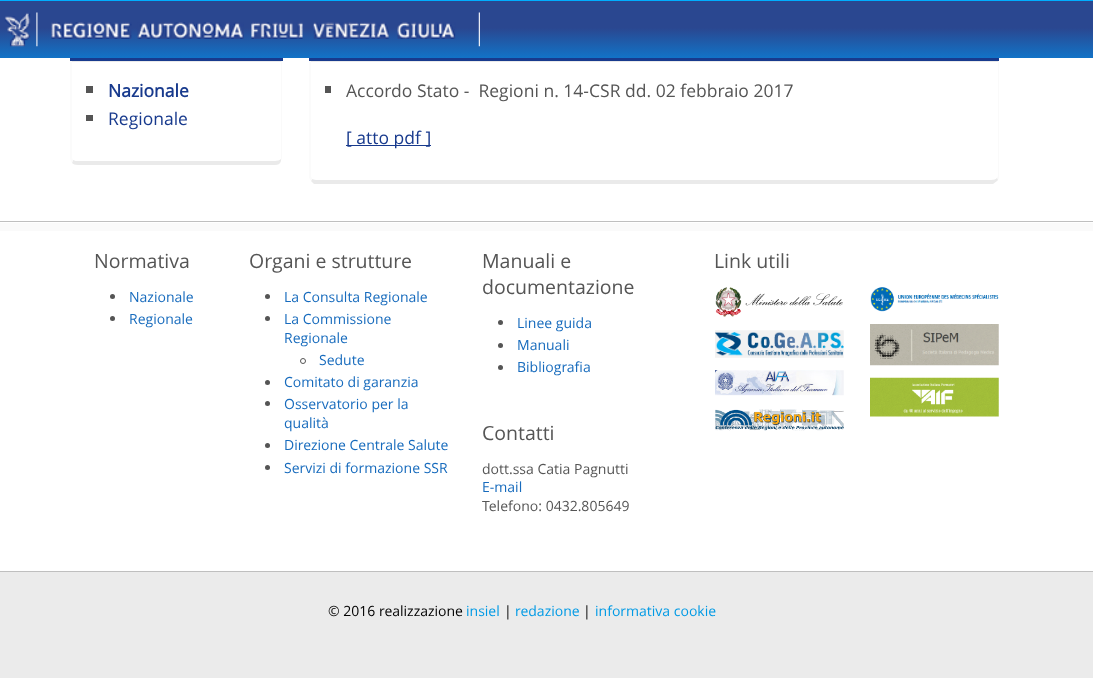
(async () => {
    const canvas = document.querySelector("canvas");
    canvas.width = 1093;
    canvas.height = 678;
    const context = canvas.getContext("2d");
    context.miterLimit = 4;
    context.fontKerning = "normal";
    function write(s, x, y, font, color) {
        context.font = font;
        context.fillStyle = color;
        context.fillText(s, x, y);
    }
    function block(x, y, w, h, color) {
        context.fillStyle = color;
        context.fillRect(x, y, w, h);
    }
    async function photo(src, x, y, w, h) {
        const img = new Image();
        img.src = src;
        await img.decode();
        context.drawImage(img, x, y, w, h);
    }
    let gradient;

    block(0, 0, 1093, 678, "rgb(255, 255, 255)");
    gradient = context.createLinearGradient(547, 1.2, 547, 58);
    gradient.addColorStop(0, "rgb(42, 71, 144)");
    gradient.addColorStop(0.47, "rgb(42, 71, 144)");
    gradient.addColorStop(1, "rgb(18, 115, 199)");
    context.fillStyle = gradient;
    context.fillRect(0, 1, 1093, 57);
    block(0, 0, 1093, 1, "rgb(0, 174, 255)");
    await photo("media/1.png", 4, 12, 476, 35);
    context.fillStyle = "rgb(234, 234, 234)";
    context.beginPath();
    context.moveTo(70, 60);
    context.lineTo(72, 62);
    context.lineTo(281, 62);
    context.lineTo(281, 63);
    context.lineTo(282, 60);
    context.closePath();
    context.fill();
    context.beginPath();
    context.moveTo(78, 165);
    context.lineTo(275, 165);
    context.bezierCurveTo(278, 165, 280, 164, 281, 161);
    context.lineTo(281, 159);
    context.bezierCurveTo(280, 160, 277, 161, 275, 161);
    context.lineTo(78, 161);
    context.bezierCurveTo(76, 161, 75, 161, 73, 160);
    context.lineTo(72, 163);
    context.bezierCurveTo(73, 164, 75, 165, 78, 165);
    context.closePath();
    context.fill();
    context.fillStyle = "rgb(251, 251, 251)";
    context.beginPath();
    context.moveTo(72, 62);
    context.lineTo(70, 60);
    context.lineTo(70, 158);
    context.bezierCurveTo(70, 160, 71, 161, 72, 163);
    context.lineTo(73, 160);
    context.lineTo(72, 158);
    context.closePath();
    context.fill();
    block(70, 58, 213, 3, "rgb(24, 58, 141)");
    context.fillStyle = "rgb(250, 250, 250)";
    context.beginPath();
    context.moveTo(282, 61);
    context.lineTo(282, 158);
    context.lineTo(281, 161);
    context.lineTo(281, 159);
    context.lineTo(281, 158);
    context.lineTo(281, 63);
    context.closePath();
    context.fill();
    block(86, 86, 7, 7, "rgb(85, 85, 85)");
    write("Nazionale", 108, 97, "bold 17.5px Open Sans", "rgb(24, 58, 141)");
    block(86, 115, 7, 6, "rgb(85, 85, 85)");
    write("Regionale", 108, 125, "17.5px Open Sans", "rgb(24, 58, 141)");
    context.fillStyle = "rgb(234, 234, 234)";
    context.beginPath();
    context.moveTo(309, 60);
    context.lineTo(311, 62);
    context.lineTo(998, 62);
    context.lineTo(999, 60);
    context.closePath();
    context.fill();
    context.fillStyle = "rgb(250, 250, 250)";
    context.beginPath();
    context.moveTo(999, 60);
    context.lineTo(999, 178);
    context.lineTo(998, 180);
    context.lineTo(997, 178);
    context.lineTo(998, 176);
    context.lineTo(998, 62);
    context.closePath();
    context.fill();
    context.fillStyle = "rgb(234, 234, 234)";
    context.beginPath();
    context.moveTo(314, 184);
    context.bezierCurveTo(313, 183, 312, 182, 311, 181);
    context.lineTo(312, 179);
    context.bezierCurveTo(313, 179, 314, 180, 316, 180);
    context.lineTo(991, 180);
    context.bezierCurveTo(994, 180, 996, 179, 997, 178);
    context.lineTo(998, 180);
    context.lineTo(997, 181);
    context.lineTo(993, 184);
    context.closePath();
    context.fill();
    context.fillStyle = "rgb(251, 251, 251)";
    context.beginPath();
    context.moveTo(309, 60);
    context.lineTo(309, 176);
    context.bezierCurveTo(309, 178, 310, 180, 311, 181);
    context.lineTo(312, 179);
    context.lineTo(311, 176);
    context.lineTo(311, 62);
    context.closePath();
    context.fill();
    block(309, 58, 690, 3, "rgb(24, 58, 141)");
    block(325, 86, 6, 7, "rgb(85, 85, 85)");
    write("Accordo Stato -  Regioni n. 14-CSR dd. 02 febbraio 2017", 346, 97, "17.5px Open Sans", "rgb(85, 85, 85)");
    block(346, 145, 85, 1, "rgb(24, 58, 141)");
    write("[ atto pdf ]", 346, 144, "17.5px Open Sans", "rgb(24, 58, 141)");
    block(0, 223, 1093, 8, "rgb(250, 250, 250)");
    block(0, 221, 1093, 1, "rgb(191, 191, 191)");
    write("Normativa", 94, 268, "19.5px Open Sans", "rgb(85, 85, 85)");
    context.beginPath();
    context.arc(112.5, 296.5, 2.5, 0, Math.PI * 2);
    context.fill();
    write("Nazionale", 129, 302, "14px Open Sans", "rgb(23, 107, 189)");
    context.fillStyle = "rgb(85, 85, 85)";
    context.beginPath();
    context.arc(112.5, 318.5, 2.5, 0, Math.PI * 2);
    context.fill();
    write("Regionale", 129, 324, "14px Open Sans", "rgb(23, 107, 189)");
    write("Organi e strutture", 249, 268, "19.5px Open Sans", "rgb(85, 85, 85)");
    context.beginPath();
    context.arc(267.5, 296.5, 2.5, 0, Math.PI * 2);
    context.fill();
    write("La Consulta Regionale", 284, 302, "14px Open Sans", "rgb(23, 107, 189)");
    context.fillStyle = "rgb(85, 85, 85)";
    context.beginPath();
    context.arc(267.5, 318.5, 2.5, 0, Math.PI * 2);
    context.fill();
    write("La Commissione", 284, 324, "14px Open Sans", "rgb(23, 107, 189)");
    write("Regionale", 284, 343, "14px Open Sans", "rgb(23, 107, 189)");
    context.beginPath();
    context.arc(303, 361, 2.5, 0, Math.PI * 2);
    context.strokeStyle = "rgb(85, 85, 85)";
    context.stroke();
    write("Sedute", 319, 365, "14px Open Sans", "rgb(23, 107, 189)");
    context.fillStyle = "rgb(85, 85, 85)";
    context.beginPath();
    context.arc(267.5, 382.5, 2.5, 0, Math.PI * 2);
    context.fill();
    write("Comitato di garanzia", 284, 387, "14px Open Sans", "rgb(23, 107, 189)");
    context.fillStyle = "rgb(85, 85, 85)";
    context.beginPath();
    context.arc(267.5, 403.5, 2.5, 0, Math.PI * 2);
    context.fill();
    write("Osservatorio per la", 284, 409, "14px Open Sans", "rgb(23, 107, 189)");
    write("qualità", 284, 428, "14px Open Sans", "rgb(23, 107, 189)");
    context.fillStyle = "rgb(85, 85, 85)";
    context.beginPath();
    context.arc(267.5, 445.5, 2.5, 0, Math.PI * 2);
    context.fill();
    write("Direzione Centrale Salute", 284, 450, "14px Open Sans", "rgb(23, 107, 189)");
    context.fillStyle = "rgb(85, 85, 85)";
    context.beginPath();
    context.arc(267.5, 467.5, 2.5, 0, Math.PI * 2);
    context.fill();
    write("Servizi di formazione SSR", 284, 473, "14px Open Sans", "rgb(23, 107, 189)");
    write("Manuali e", 482, 268, "19.5px Open Sans", "rgb(85, 85, 85)");
    write("documentazione", 482, 294, "19.5px Open Sans", "rgb(85, 85, 85)");
    context.beginPath();
    context.arc(500.5, 322.5, 2.5, 0, Math.PI * 2);
    context.fill();
    write("Linee guida", 517, 328, "14px Open Sans", "rgb(23, 107, 189)");
    context.fillStyle = "rgb(85, 85, 85)";
    context.beginPath();
    context.arc(500.5, 345.5, 2.5, 0, Math.PI * 2);
    context.fill();
    write("Manuali", 517, 350, "14px Open Sans", "rgb(23, 107, 189)");
    context.fillStyle = "rgb(85, 85, 85)";
    context.beginPath();
    context.arc(500.5, 367.5, 2.5, 0, Math.PI * 2);
    context.fill();
    write("Bibliografia", 517, 372, "14px Open Sans", "rgb(23, 107, 189)");
    write("Contatti", 482, 440, "19.5px Open Sans", "rgb(85, 85, 85)");
    write("dott.ssa Catia Pagnutti", 482, 474, "14px Open Sans", "rgb(85, 85, 85)");
    write("E-mail", 482, 492, "14px Open Sans", "rgb(23, 107, 189)");
    write("Telefono: 0432.805649", 482, 511, "14px Open Sans", "rgb(85, 85, 85)");
    write("Link utili", 714, 268, "19.5px Open Sans", "rgb(85, 85, 85)");
    await photo("media/2.png", 715, 287, 128, 30);
    await photo("media/3.png", 715, 330, 129, 28);
    await photo("media/4.png", 715, 370, 129, 26);
    await photo("media/5.png", 715, 409, 129, 22);
    await photo("media/6.png", 870, 287, 129, 25);
    await photo("media/7.png", 870, 324, 129, 42);
    await photo("media/8.png", 870, 377, 129, 40);
    block(0, 572, 1093, 106, "rgb(235, 235, 235)");
    block(0, 571, 1093, 1, "rgb(191, 191, 191)");
    write("© 2016 realizzazione", 328, 616, "14px Open Sans", "rgb(0, 0, 0)");
    write("insiel", 466, 616, "14px Open Sans", "rgb(0, 154, 229)");
    write("|", 504, 616, "14px Open Sans", "rgb(0, 0, 0)");
    write("redazione", 515, 616, "14px Open Sans", "rgb(0, 154, 229)");
    write("|", 583, 616, "14px Open Sans", "rgb(0, 0, 0)");
    write("informativa cookie", 595, 616, "14px Open Sans", "rgb(0, 154, 229)");
})();
